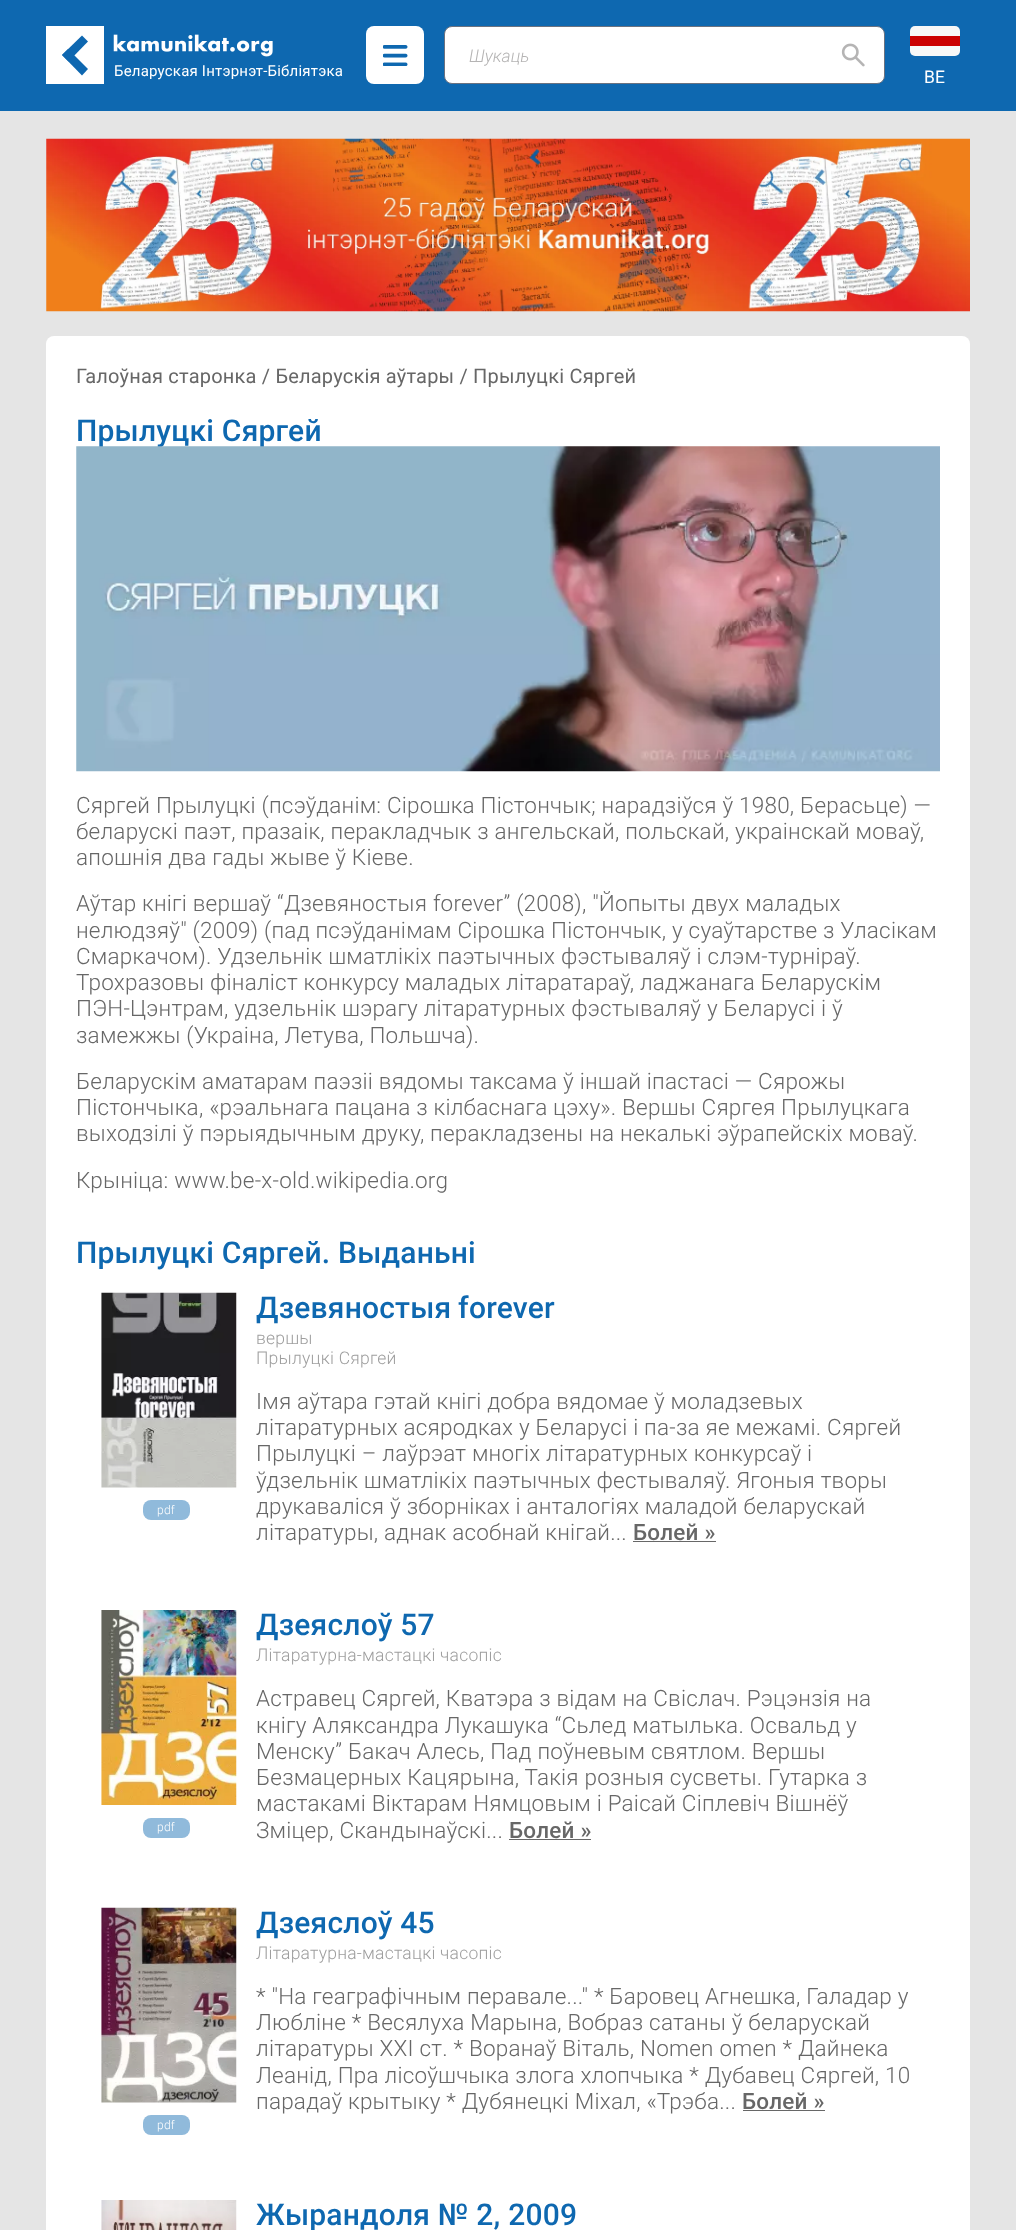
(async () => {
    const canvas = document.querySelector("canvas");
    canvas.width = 1016;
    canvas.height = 2230;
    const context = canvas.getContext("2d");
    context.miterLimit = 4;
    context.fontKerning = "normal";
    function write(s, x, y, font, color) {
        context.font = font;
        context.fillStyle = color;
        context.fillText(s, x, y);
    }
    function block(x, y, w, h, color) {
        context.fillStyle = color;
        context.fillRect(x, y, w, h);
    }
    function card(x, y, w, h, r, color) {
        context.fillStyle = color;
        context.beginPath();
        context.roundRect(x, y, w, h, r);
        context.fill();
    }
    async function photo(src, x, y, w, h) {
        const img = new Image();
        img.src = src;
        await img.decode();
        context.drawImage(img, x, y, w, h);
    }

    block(0, 0, 1016, 2230, "rgb(229, 229, 229)");
    block(0, 0, 1016, 111, "rgb(14, 104, 176)");
    block(46, 26, 58, 58, "rgb(255, 255, 255)");
    context.fillStyle = "rgb(14, 103, 176)";
    context.beginPath();
    context.moveTo(62, 55);
    context.lineTo(68, 49);
    context.lineTo(88, 69);
    context.lineTo(82, 75.5);
    context.closePath();
    context.fill();
    context.beginPath();
    context.moveTo(68.5, 61.5);
    context.lineTo(62, 55);
    context.lineTo(82, 35.5);
    context.lineTo(88, 41.5);
    context.closePath();
    context.fill();
    card(366, 26, 58, 58, 8, "rgb(255, 255, 255)");
    await photo("media/1.png", 383, 45, 25, 21);
    context.beginPath();
    context.roundRect(444.5, 26.5, 440, 57, 7.5);
    context.fill();
    context.strokeStyle = "rgb(107, 114, 128)";
    context.stroke();
    write("Шукаць", 469, 62, "italic 300 17.5px Roboto", "rgb(181, 180, 180)");
    await photo("media/2.png", 841, 43, 24, 24);
    await photo("media/3.png", 113, 34, 160, 23);
    context.letterSpacing = "0.2px";
    write("Беларуская Інтэрнэт-Бібліятэка", 114, 76, "15px Roboto", "rgb(255, 255, 255)");
    context.fillStyle = "rgb(247, 247, 247)";
    context.beginPath();
    context.roundRect(910, 26, 50, 10, [5, 5, 0, 0]);
    context.fill();
    context.beginPath();
    context.roundRect(910, 46, 50, 10, [0, 0, 5, 5]);
    context.fill();
    block(910, 36, 50, 10, "rgb(204, 0, 0)");
    write("BE", 924, 83, "17.5px Roboto", "rgb(255, 255, 255)");
    await photo("media/4.png", 46, 138, 924, 174);
    card(46, 336, 924, 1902, 8, "rgb(255, 255, 255)");
    write("Галоўная старонка / Беларускія аўтары / Прылуцкі Сяргей", 76, 383, "20px Roboto", "rgb(103, 103, 103)");
    context.letterSpacing = "0.22px";
    write("Прылуцкі Сяргей", 76, 441, "500 30px Roboto", "rgb(14, 104, 176)");
    await photo("media/5.png", 76, 446, 864, 326);
    write("Сяргей Прылуцкі (псэўданім: Сірошка Пістончык; нарадзіўся ў 1980, Берасьце) —", 76, 813, "300 22.5px Roboto", "rgb(103, 103, 103)");
    write("беларускі паэт, празаік, перакладчык з ангельскай, польскай, украінскай моваў,", 76, 839, "300 22.5px Roboto", "rgb(103, 103, 103)");
    write("апошнія два гады жыве ў Кіеве.", 76, 865, "300 22.5px Roboto", "rgb(103, 103, 103)");
    write("Аўтар кнігі вершаў “Дзевяностыя forever” (2008), \"Йопыты двух маладых", 76, 911, "300 22.5px Roboto", "rgb(103, 103, 103)");
    write("нелюдзяў\" (2009) (пад псэўданімам Сірошка Пістончык, у суаўтарстве з Уласікам", 76, 938, "300 22.5px Roboto", "rgb(103, 103, 103)");
    write("Смаркачом). Удзельнік шматлікіх паэтычных фэстываляў і слэм-турніраў.", 76, 964, "300 22.5px Roboto", "rgb(103, 103, 103)");
    write("Трохразовы фіналіст конкурсу маладых літаратараў, ладжанага Беларускім", 76, 990, "300 22.5px Roboto", "rgb(103, 103, 103)");
    write("ПЭН-Цэнтрам, удзельнік шэрагу літаратурных фэстываляў у Беларусі і ў", 76, 1016, "300 22.5px Roboto", "rgb(103, 103, 103)");
    write("замежжы (Украіна, Летува, Польшча).", 76, 1043, "300 22.5px Roboto", "rgb(103, 103, 103)");
    write("Беларускім аматарам паэзіі вядомы таксама ў іншай іпастасі — Сярожы", 76, 1089, "300 22.5px Roboto", "rgb(103, 103, 103)");
    write("Пістончыка, «рэальнага пацана з кілбаснага цэху». Вершы Сяргея Прылуцкага", 76, 1115, "300 22.5px Roboto", "rgb(103, 103, 103)");
    write("выходзілі ў пэрыядычным друку, перакладзены на некалькі эўрапейскіх моваў.", 76, 1141, "300 22.5px Roboto", "rgb(103, 103, 103)");
    write("Крыніца: www.be-x-old.wikipedia.org", 76, 1188, "300 22.5px Roboto", "rgb(103, 103, 103)");
    write("Прылуцкі Сяргей. Выданьні", 76, 1263, "500 30px Roboto", "rgb(14, 104, 176)");
    context.wordSpacing = "-1px";
    write("Дзевяностыя forever", 256, 1318, "500 30px Roboto", "rgb(14, 104, 176)");
    context.wordSpacing = "0px";
    write("вершы", 256, 1344, "300 17.5px Roboto", "rgb(158, 158, 158)");
    write("Прылуцкі Сяргей", 256, 1364, "300 17.5px Roboto", "rgb(158, 158, 158)");
    await photo("media/6.png", 101, 1292, 136, 196);
    card(143, 1500, 47, 20, 8, "rgb(144, 186, 219)");
    write("pdf", 157, 1514, "300 12px Roboto", "rgb(255, 255, 255)");
    write("Імя аўтара гэтай кнігі добра вядомае ў моладзевых", 256, 1409, "300 22.5px Roboto", "rgb(103, 103, 103)");
    write("літаратурных асяродках у Беларусі і па-за яе межамі. Сяргей", 256, 1435, "300 22.5px Roboto", "rgb(103, 103, 103)");
    write("Прылуцкі – лаўрэат многіх літаратурных конкурсаў і", 256, 1461, "300 22.5px Roboto", "rgb(103, 103, 103)");
    write("ўдзельнік шматлікіх паэтычных фестываляў. Ягоныя творы", 256, 1488, "300 22.5px Roboto", "rgb(103, 103, 103)");
    write("друкаваліся ў зборніках і анталогіях маладой беларускай", 256, 1514, "300 22.5px Roboto", "rgb(103, 103, 103)");
    write("літаратуры, аднак асобнай кнігай...", 256, 1540, "300 22.5px Roboto", "rgb(103, 103, 103)");
    write("Болей »", 633, 1540, "500 22.5px Roboto", "rgb(103, 103, 103)");
    block(633, 1541, 83, 1, "rgb(103, 103, 103)");
    write("Дзеяслоў 57", 256, 1635, "500 30px Roboto", "rgb(14, 104, 176)");
    write("Літаратурна-мастацкі часопіс", 256, 1661, "300 17.5px Roboto", "rgb(158, 158, 158)");
    await photo("media/7.png", 101, 1610, 136, 195);
    card(143, 1818, 47, 20, 8, "rgb(144, 186, 219)");
    write("pdf", 157, 1831, "300 12px Roboto", "rgb(255, 255, 255)");
    write("Астравец Сяргей, Кватэра з відам на Свіслач. Рэцэнзія на", 256, 1706, "300 22.5px Roboto", "rgb(103, 103, 103)");
    write("кнігу Аляксандра Лукашука “Сьлед матылька. Освальд у", 256, 1733, "300 22.5px Roboto", "rgb(103, 103, 103)");
    write("Менску” Бакач Алесь, Пад поўневым святлом. Вершы", 256, 1759, "300 22.5px Roboto", "rgb(103, 103, 103)");
    write("Безмацерных Кацярына, Такія розныя сусветы. Гутарка з", 256, 1785, "300 22.5px Roboto", "rgb(103, 103, 103)");
    write("мастакамі Віктарам Нямцовым і Раісай Сіплевіч Вішнёў", 256, 1811, "300 22.5px Roboto", "rgb(103, 103, 103)");
    write("Зміцер, Скандынаўскі...", 256, 1838, "300 22.5px Roboto", "rgb(103, 103, 103)");
    write("Болей »", 509, 1838, "500 22.5px Roboto", "rgb(103, 103, 103)");
    block(509, 1839, 82, 1, "rgb(103, 103, 103)");
    write("Дзеяслоў 45", 256, 1933, "500 30px Roboto", "rgb(14, 104, 176)");
    write("Літаратурна-мастацкі часопіс", 256, 1959, "300 17.5px Roboto", "rgb(158, 158, 158)");
    write("* \"На геаграфічным перавале...\" * Баровец Агнешка, Галадар у", 256, 2004, "300 22.5px Roboto", "rgb(103, 103, 103)");
    write("Любліне * Весялуха Марына, Вобраз сатаны ў беларускай", 256, 2030, "300 22.5px Roboto", "rgb(103, 103, 103)");
    write("літаратуры XXI ст. * Воранаў Віталь, Nomen omen * Дайнека", 256, 2056, "300 22.5px Roboto", "rgb(103, 103, 103)");
    write("Леанід, Пра лісоўшчыка злога хлопчыка * Дубавец Сяргей, 10", 256, 2083, "300 22.5px Roboto", "rgb(103, 103, 103)");
    write("парадаў крытыку * Дубянецкі Міхал, «Трэба...", 256, 2109, "300 22.5px Roboto", "rgb(103, 103, 103)");
    write("Болей »", 742, 2109, "500 22.5px Roboto", "rgb(103, 103, 103)");
    block(743, 2110, 82, 1, "rgb(103, 103, 103)");
    await photo("media/8.png", 101, 1907, 136, 196);
    card(143, 2115, 47, 20, 8, "rgb(144, 186, 219)");
    write("pdf", 157, 2129, "300 12px Roboto", "rgb(255, 255, 255)");
    await photo("media/9.png", 101, 2200, 136, 30);
    write("Жырандоля № 2, 2009", 256, 2225, "500 30px Roboto", "rgb(14, 104, 176)");
})();
